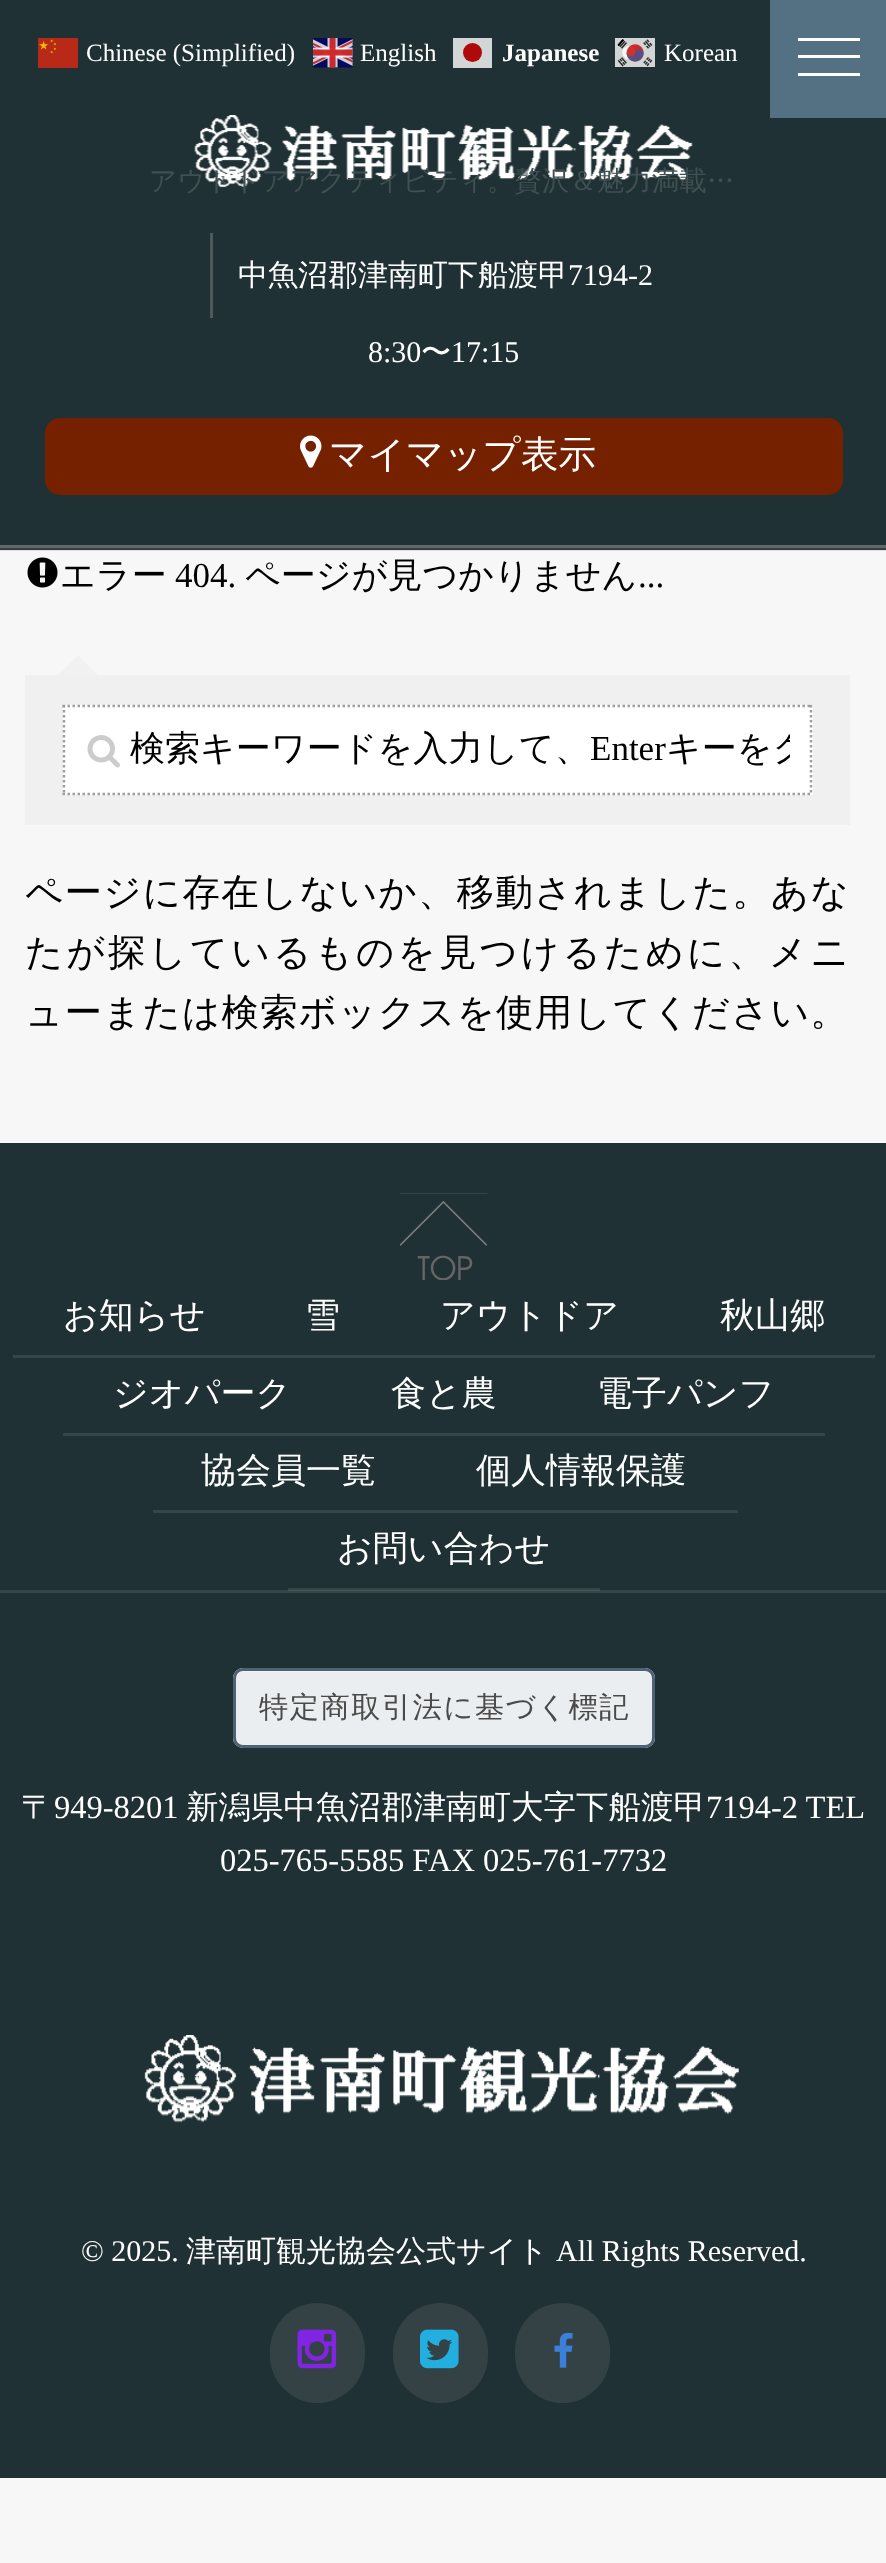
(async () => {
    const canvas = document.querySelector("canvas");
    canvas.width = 886;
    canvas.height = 2563;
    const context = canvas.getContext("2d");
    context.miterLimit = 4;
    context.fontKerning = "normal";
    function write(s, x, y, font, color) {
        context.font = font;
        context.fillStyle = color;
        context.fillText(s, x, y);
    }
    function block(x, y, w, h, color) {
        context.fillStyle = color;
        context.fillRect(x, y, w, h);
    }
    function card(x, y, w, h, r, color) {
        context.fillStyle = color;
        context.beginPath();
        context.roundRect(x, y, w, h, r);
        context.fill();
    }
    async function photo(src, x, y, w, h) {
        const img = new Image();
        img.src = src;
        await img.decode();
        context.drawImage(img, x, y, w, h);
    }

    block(0, 0, 886, 2563, "rgb(247, 247, 247)");
    block(0, 550, 886, 1, "rgb(223, 223, 223)");
    block(0, 0, 886, 545, "rgb(31, 49, 52)");
    await photo("media/1.png", 38, 38, 40, 30);
    write("Chinese (Simplified)", 86, 61, "25px Liberation Serif", "rgb(255, 255, 255)");
    await photo("media/2.png", 313, 38, 40, 30);
    write("English", 360, 61, "25px Liberation Serif", "rgb(255, 255, 255)");
    write("Japanese", 502, 61, "bold 25px Liberation Serif", "rgb(255, 255, 255)");
    block(453, 38, 39, 30, "rgb(210, 214, 214)");
    context.fillStyle = "rgb(175, 10, 10)";
    context.beginPath();
    context.arc(472.5, 52.5, 9.5, 0, Math.PI * 2);
    context.fill();
    await photo("media/3.png", 615, 38, 40, 29);
    write("Korean", 664, 61, "25px Liberation Serif", "rgb(255, 255, 255)");
    await photo("media/4.png", 27, 557, 31, 31);
    write("エラー", 60, 587, "500 35px WenQuanYi Zen Hei", "rgb(0, 0, 0)");
    write("404.", 175, 587, "35px Liberation Serif", "rgb(0, 0, 0)");
    write("ページが見つかりません", 245, 587, "500 35px WenQuanYi Zen Hei", "rgb(0, 0, 0)");
    write("...", 638, 587, "35px Liberation Serif", "rgb(0, 0, 0)");
    block(25, 675, 825, 150, "rgb(240, 240, 240)");
    context.fillStyle = "rgb(241, 241, 241)";
    context.beginPath();
    context.moveTo(98, 675);
    context.lineTo(58, 675);
    context.lineTo(78, 655);
    context.closePath();
    context.fill();
    block(63, 705, 750, 90, "rgb(255, 255, 255)");
    await photo("media/5.png", 87, 735, 33, 33);
    context.beginPath();
    context.moveTo(62.5, 706);
    context.lineTo(812.5, 706);
    context.strokeStyle = "rgb(158, 158, 158)";
    context.lineWidth = 2.5;
    context.setLineDash([2.5, 2.5]);
    context.stroke();
    context.beginPath();
    context.moveTo(811, 705);
    context.lineTo(811, 795);
    context.stroke();
    context.beginPath();
    context.moveTo(62.5, 794);
    context.lineTo(812.5, 794);
    context.stroke();
    context.beginPath();
    context.moveTo(64, 705);
    context.lineTo(64, 795);
    context.stroke();
    write("検索キーワードを入力して、", 130, 760, "500 35px WenQuanYi Zen Hei", "rgb(0, 0, 0)");
    write("Enter", 590, 760, "35px Liberation Serif", "rgb(0, 0, 0)");
    context.save();
    context.beginPath();
    context.rect(130, 725, 660, 50);
    context.clip();
    write("キーをク", 666, 760, "500 35px WenQuanYi Zen Hei", "rgb(0, 0, 0)");
    context.restore();
    context.letterSpacing = "1.2px";
    write("ページに存在しないか、移動されました。あな", 25, 905, "500 37.5px WenQuanYi Zen Hei", "rgb(0, 0, 0)");
    context.letterSpacing = "3.1px";
    write("たが探しているものを見つけるために、メニ", 25, 965, "500 37.5px WenQuanYi Zen Hei", "rgb(0, 0, 0)");
    context.letterSpacing = "1.1px";
    write("ューまたは検索ボックスを使用してください。", 25, 1025, "500 37.5px WenQuanYi Zen Hei", "rgb(0, 0, 0)");
    block(0, 1143, 886, 1335, "rgb(31, 49, 52)");
    block(288, 1588, 312, 2, "rgb(53, 70, 72)");
    await photo("media/6.png", 400, 1193, 88, 87);
    block(0, 1590, 886, 3, "rgb(53, 70, 72)");
    block(288, 1590, 312, 1, "rgb(73, 89, 90)");
    block(13, 1355, 862, 3, "rgb(53, 70, 72)");
    context.letterSpacing = "0px";
    write("お知らせ", 63, 1327, "500 35px WenQuanYi Zen Hei", "rgb(255, 255, 255)");
    write("雪", 305, 1327, "500 35px WenQuanYi Zen Hei", "rgb(255, 255, 255)");
    write("アウトドア", 440, 1327, "500 35px WenQuanYi Zen Hei", "rgb(255, 255, 255)");
    write("秋山郷", 720, 1327, "500 35px WenQuanYi Zen Hei", "rgb(255, 255, 255)");
    block(63, 1433, 762, 3, "rgb(53, 70, 72)");
    write("ジオパーク", 113, 1405, "500 35px WenQuanYi Zen Hei", "rgb(255, 255, 255)");
    write("食と農", 391, 1405, "500 35px WenQuanYi Zen Hei", "rgb(255, 255, 255)");
    write("電子パンフ", 597, 1405, "500 35px WenQuanYi Zen Hei", "rgb(255, 255, 255)");
    block(153, 1510, 585, 3, "rgb(53, 70, 72)");
    write("協会員一覧", 201, 1482, "500 35px WenQuanYi Zen Hei", "rgb(255, 255, 255)");
    write("個人情報保護", 476, 1482, "500 35px WenQuanYi Zen Hei", "rgb(255, 255, 255)");
    write("お問い合わせ", 337, 1560, "500 35px WenQuanYi Zen Hei", "rgb(255, 255, 255)");
    card(233, 1668, 422, 80, 10, "rgb(235, 238, 240)");
    context.fillStyle = "rgb(239, 241, 243)";
    context.beginPath();
    context.moveTo(242, 1672);
    context.lineTo(645, 1672);
    context.bezierCurveTo(649, 1672, 652, 1676, 652, 1680);
    context.lineTo(652, 1741);
    context.bezierCurveTo(653, 1740, 653, 1738, 653, 1737);
    context.lineTo(653, 1678);
    context.bezierCurveTo(653, 1674, 649, 1670, 645, 1670);
    context.lineTo(243, 1670);
    context.bezierCurveTo(239, 1670, 235, 1674, 235, 1678);
    context.lineTo(235, 1680);
    context.bezierCurveTo(235, 1676, 238, 1672, 242, 1672);
    context.closePath();
    context.fill();
    context.beginPath();
    context.roundRect(234.5, 1669.5, 419, 77, 8.5);
    context.strokeStyle = "rgb(76, 100, 115)";
    context.lineWidth = 3;
    context.setLineDash([]);
    context.stroke();
    context.letterSpacing = "1.5px";
    write("特定商取引法に基づく標記", 259, 1717, "500 29.25px WenQuanYi Zen Hei", "rgb(74, 74, 74)");
    context.letterSpacing = "0px";
    write("〒", 21, 1818, "500 32.5px WenQuanYi Zen Hei", "rgb(255, 255, 255)");
    write("949-8201", 54, 1818, "32.5px Liberation Serif", "rgb(255, 255, 255)");
    write("新潟県中魚沼郡津南町大字下船渡甲", 186, 1818, "500 32.5px WenQuanYi Zen Hei", "rgb(255, 255, 255)");
    write("7194-2 TEL", 706, 1818, "32.5px Liberation Serif", "rgb(255, 255, 255)");
    write("025-765-5585 FAX 025-761-7732", 220, 1871, "32.5px Liberation Serif", "rgb(255, 255, 255)");
    await photo("media/7.png", 144, 2035, 595, 88);
    write("© 2025.", 81, 2261, "30px Liberation Serif", "rgb(255, 255, 255)");
    write("津南町観光協会公式サイト", 186, 2261, "500 30px WenQuanYi Zen Hei", "rgb(255, 255, 255)");
    write("All Rights Reserved.", 556, 2261, "30px Liberation Serif", "rgb(255, 255, 255)");
    card(270, 2303, 95, 100, 47.5, "rgb(52, 66, 69)");
    await photo("media/8.png", 297, 2329, 40, 40);
    card(393, 2303, 95, 100, 47.5, "rgb(52, 66, 69)");
    await photo("media/9.png", 420, 2329, 39, 40);
    card(515, 2303, 95, 100, 47.5, "rgb(52, 66, 69)");
    await photo("media/10.png", 554, 2332, 19, 36);
    block(0, 548, 886, 2, "rgb(50, 65, 67)");
    block(770, 0, 116, 118, "rgb(84, 113, 132)");
    block(798, 38, 62, 3, "rgb(255, 255, 255)");
    block(798, 55, 62, 3, "rgb(255, 255, 255)");
    block(798, 73, 62, 3, "rgb(255, 255, 255)");
    await photo("media/11.png", 194, 115, 499, 73);
    block(0, 545, 886, 3, "rgb(98, 104, 105)");
    write("アウトドアアクティビティ。贅沢＆魅力満載…", 149, 190, "500 27.5px WenQuanYi Zen Hei", "rgb(64, 80, 82)");
    write("中魚沼郡津南町下船渡甲", 238, 285, "500 30px WenQuanYi Zen Hei", "rgb(255, 255, 255)");
    block(210, 233, 3, 85, "rgb(79, 88, 90)");
    write("7194-2", 568, 285, "30px Liberation Serif", "rgb(255, 255, 255)");
    write("8:30", 368, 362, "30px Liberation Serif", "rgb(255, 255, 255)");
    write("〜", 421, 362, "500 30px WenQuanYi Zen Hei", "rgb(255, 255, 255)");
    write("17:15", 451, 362, "30px Liberation Serif", "rgb(255, 255, 255)");
    card(45, 418, 798, 77, 15, "rgb(117, 33, 0)");
    await photo("media/12.png", 300, 435, 22, 33);
    write("マイマップ表示", 329, 467, "500 37.5px WenQuanYi Zen Hei", "rgb(255, 255, 255)");
})();
